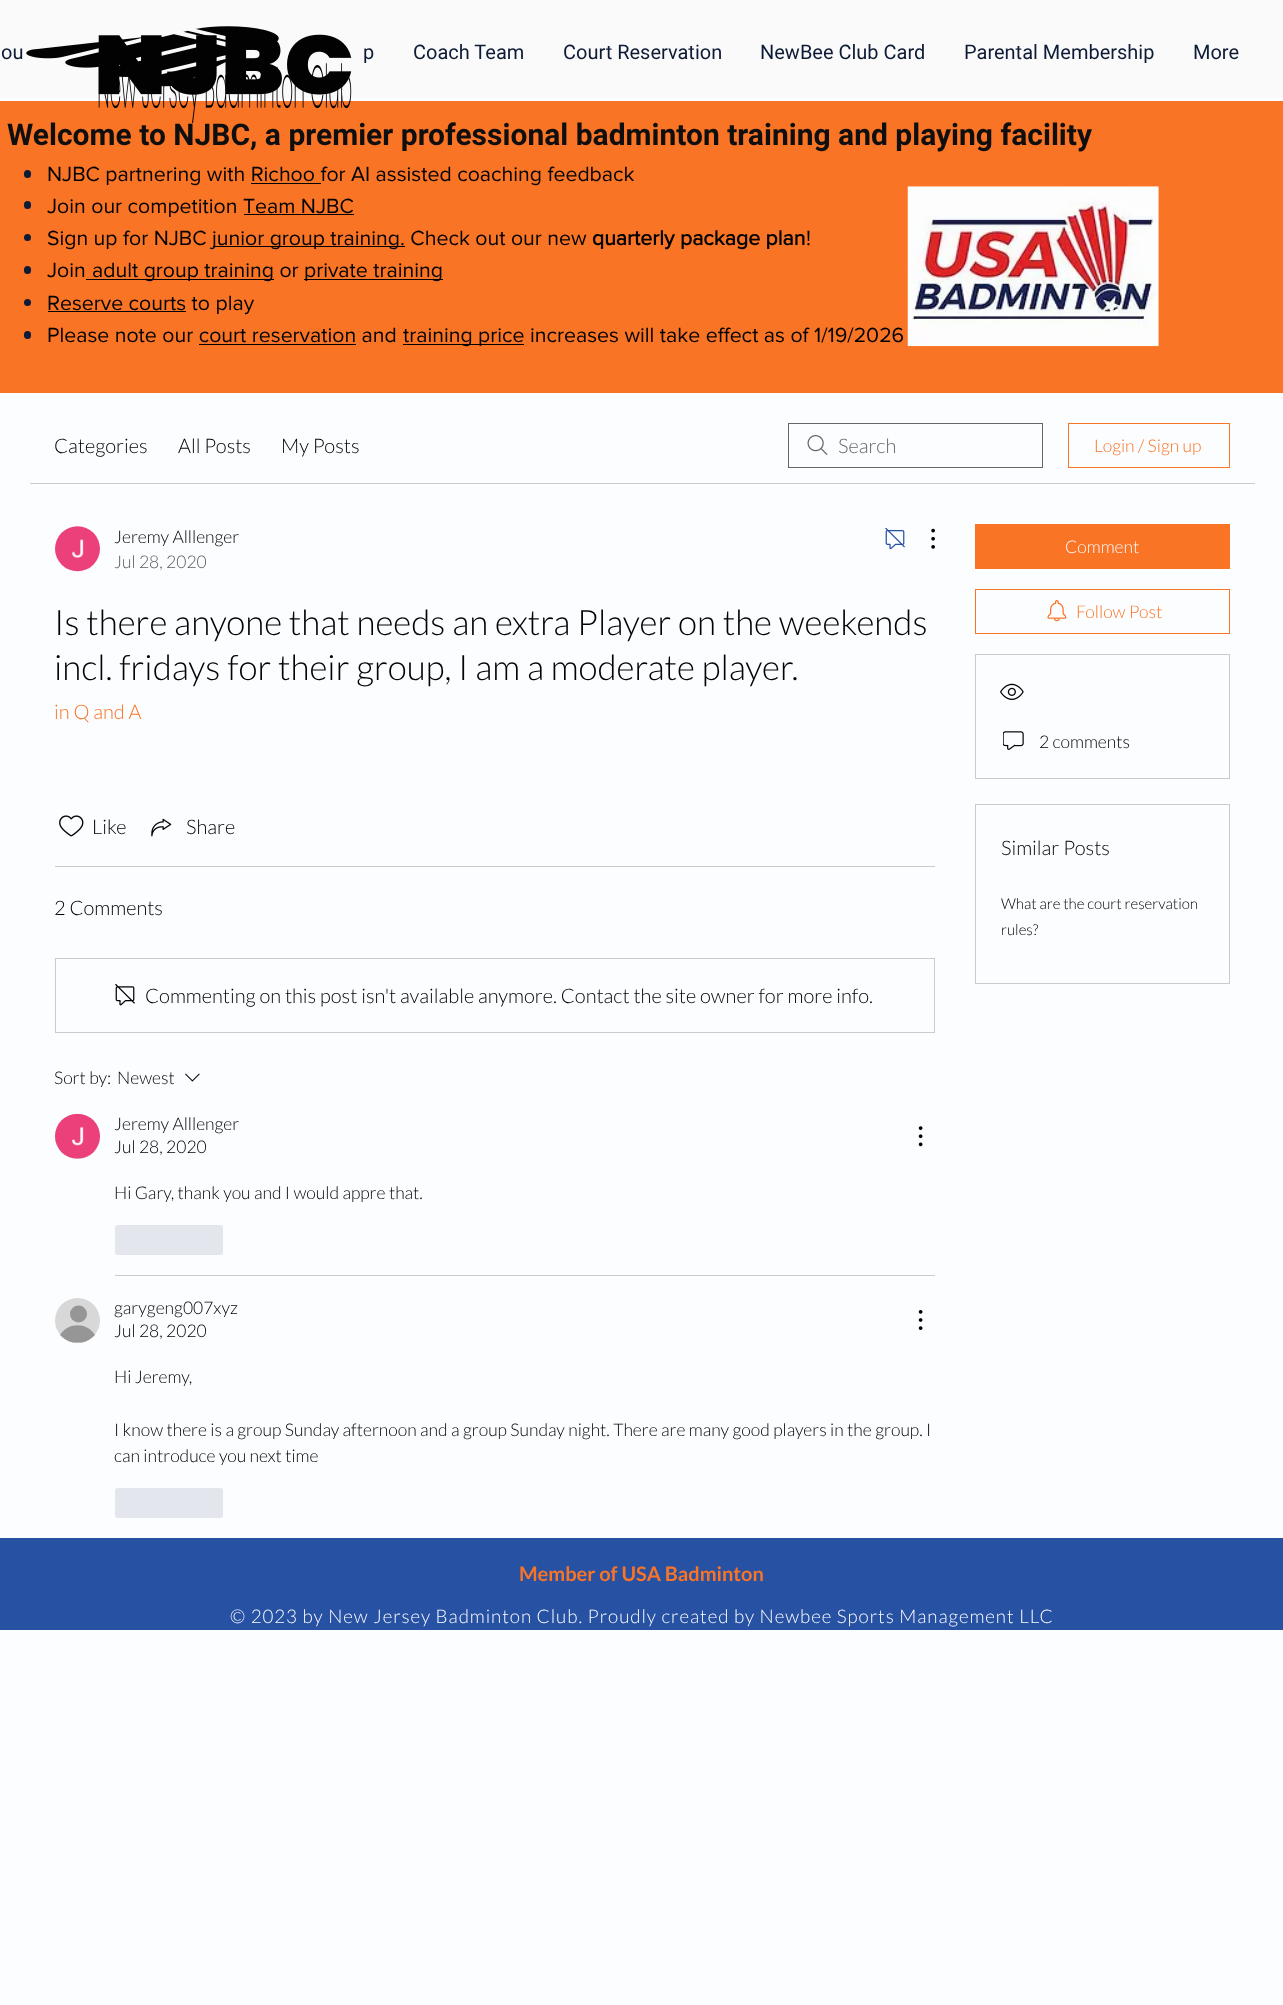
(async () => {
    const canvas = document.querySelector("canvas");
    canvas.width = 1283;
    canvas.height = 2005;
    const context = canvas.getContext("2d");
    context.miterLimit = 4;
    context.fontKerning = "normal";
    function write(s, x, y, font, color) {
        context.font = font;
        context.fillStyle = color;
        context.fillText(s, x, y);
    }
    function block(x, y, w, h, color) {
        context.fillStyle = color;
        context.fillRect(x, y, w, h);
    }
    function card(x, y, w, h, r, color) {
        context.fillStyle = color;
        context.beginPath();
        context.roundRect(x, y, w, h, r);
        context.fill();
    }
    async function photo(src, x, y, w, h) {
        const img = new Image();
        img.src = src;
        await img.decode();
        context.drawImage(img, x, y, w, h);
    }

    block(0, 0, 1283, 2005, "rgb(252, 253, 255)");
    block(0, 0, 1283, 98, "rgb(250, 250, 250)");
    block(0, 101, 1283, 292, "rgb(249, 116, 37)");
    write("Welcome to NJBC, a premier professional badminton training and playing facility", 7, 145, "bold 30px Roboto", "rgb(15, 15, 15)");
    await photo("media/1.png", 26, 26, 326, 98);
    write("ou", 1, 59, "20px Roboto", "rgb(13, 27, 54)");
    write("p", 363, 59, "20px Roboto", "rgb(13, 27, 54)");
    write("Coach Team", 413, 59, "20px Roboto", "rgb(13, 27, 54)");
    write("Court Reservation", 563, 59, "20px Roboto", "rgb(13, 27, 54)");
    write("NewBee Club Card", 760, 59, "20px Roboto", "rgb(13, 27, 54)");
    write("Parental Membership", 964, 59, "20px Roboto", "rgb(13, 27, 54)");
    write("More", 1193, 59, "20px Roboto", "rgb(13, 27, 54)");
    card(24, 170, 7, 8, 3.5, "rgb(13, 27, 54)");
    write("NJBC partnering with Richoo for AI assisted coaching feedback", 47, 181, "21.25px 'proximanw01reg'", "rgb(2, 2, 3)");
    block(251, 183, 70, 1, "rgb(2, 2, 3)");
    card(24, 201, 7, 8, 3.5, "rgb(13, 27, 54)");
    write("Join our competition Team NJBC", 47, 213, "21.25px 'proximanw01reg'", "rgb(2, 2, 3)");
    block(244, 214, 110, 1, "rgb(2, 2, 3)");
    context.fillStyle = "rgb(13, 27, 54)";
    context.beginPath();
    context.arc(27.5, 237.5, 3.5, 0, Math.PI * 2);
    context.fill();
    write("Sign up for NJBC", 47, 245, "21.25px 'proximanw01reg'", "rgb(2, 2, 3)");
    block(213, 246, 192, 1, "rgb(2, 2, 3)");
    write("junior group training. Check out our new", 212, 245, "21.25px 'proximanw01reg'", "rgb(2, 2, 3)");
    write("quarterly package plan", 592, 245, "bold 21.25px 'proximanw01reg'", "rgb(2, 2, 3)");
    write("!", 806, 245, "21.25px 'proximanw01reg'", "rgb(2, 2, 3)");
    card(24, 266, 7, 8, 3.5, "rgb(13, 27, 54)");
    write("Join", 47, 277, "21.25px 'proximanw01reg'", "rgb(2, 2, 3)");
    block(86, 279, 188, 1, "rgb(2, 2, 3)");
    write("adult group training or", 92, 277, "21.25px 'proximanw01reg'", "rgb(2, 2, 3)");
    block(304, 279, 139, 1, "rgb(2, 2, 3)");
    write("private training", 304, 277, "21.25px 'proximanw01reg'", "rgb(2, 2, 3)");
    context.fillStyle = "rgb(13, 27, 54)";
    context.beginPath();
    context.arc(27.5, 302.5, 3.5, 0, Math.PI * 2);
    context.fill();
    block(48, 311, 138, 1, "rgb(2, 2, 3)");
    write("Reserve courts to play", 47, 310, "21.25px 'proximanw01reg'", "rgb(2, 2, 3)");
    card(24, 331, 7, 8, 3.5, "rgb(13, 27, 54)");
    write("Please note our court reservation and", 47, 342, "21.25px 'proximanw01reg'", "rgb(2, 2, 3)");
    block(403, 344, 121, 1, "rgb(2, 2, 3)");
    write("training price increases will take effect as of 1/19/2026", 403, 342, "21.25px 'proximanw01reg'", "rgb(2, 2, 3)");
    block(199, 344, 157, 1, "rgb(2, 2, 3)");
    await photo("media/2.png", 907, 186, 252, 161);
    block(30, 483, 1225, 1, "rgb(202, 203, 205)");
    write("Categories", 54, 453, "300 20px Lato", "rgb(2, 2, 3)");
    write("All Posts", 178, 453, "300 20px Lato", "rgb(2, 2, 3)");
    write("My Posts", 281, 453, "300 20px Lato", "rgb(2, 2, 3)");
    await photo("media/3.png", 807, 435, 21, 20);
    context.strokeStyle = "rgb(102, 102, 104)";
    context.strokeRect(788.5, 423.5, 254, 44);
    write("Search", 838, 453, "300 20px Lato", "rgb(102, 102, 104)");
    context.strokeStyle = "rgb(249, 116, 37)";
    context.strokeRect(1068.5, 423.5, 161, 44);
    write("Login / Sign up", 1094, 452, "300 17.5px Lato", "rgb(249, 116, 37)");
    await photo("media/4.png", 55, 526, 45, 46);
    write("Jeremy Alllenger", 114, 543, "300 17.5px Lato", "rgb(2, 2, 3)");
    write("Jul 28, 2020", 114, 568, "300 17.5px Lato", "rgb(92, 92, 94)");
    await photo("media/5.png", 885, 528, 20, 22);
    await photo("media/6.png", 931, 528, 4, 21);
    write("Is there anyone that needs an extra Player on the weekends", 54, 635, "300 35px Lato", "rgb(2, 2, 3)");
    write("incl. fridays for their group, I am a moderate player.", 54, 680, "300 35px Lato", "rgb(2, 2, 3)");
    write("in Q and A", 54, 719, "300 20px Lato", "rgb(249, 116, 37)");
    await photo("media/7.png", 59, 815, 25, 22);
    write("Like", 92, 834, "300 20px Lato", "rgb(2, 2, 3)");
    await photo("media/8.png", 151, 818, 21, 19);
    write("Share", 186, 834, "300 20px Lato", "rgb(2, 2, 3)");
    block(55, 866, 880, 1, "rgb(202, 203, 205)");
    write("2 Comments", 54, 915, "300 20px Lato", "rgb(2, 2, 3)");
    context.strokeStyle = "rgb(202, 203, 205)";
    context.strokeRect(55.5, 958.5, 879, 74);
    await photo("media/9.png", 115, 984, 20, 22);
    write("Commenting on this post isn't available anymore. Contact the site owner for more info.", 145, 1003, "300 20px Lato", "rgb(2, 2, 3)");
    write("Sort by:", 54, 1084, "300 17.5px Lato", "rgb(2, 2, 3)");
    write("Newest", 117, 1084, "300 17.5px Lato", "rgb(2, 2, 3)");
    await photo("media/10.png", 185, 1073, 15, 9);
    context.fillStyle = "rgb(216, 216, 216)";
    context.beginPath();
    context.arc(77.5, 1136.5, 22.5, 0, Math.PI * 2);
    context.fill();
    await photo("media/11.png", 55, 1113, 45, 46);
    write("Jeremy Alllenger", 114, 1130, "300 17.5px Lato", "rgb(2, 2, 3)");
    write("Jul 28, 2020", 114, 1153, "300 17.5px Lato", "rgb(2, 2, 3)");
    await photo("media/12.png", 918, 1126, 5, 21);
    write("Hi Gary, thank you and I would appre that.", 114, 1199, "300 17.5px Lato", "rgb(2, 2, 3)");
    card(115, 1225, 108, 30, 2.5, "rgb(228, 230, 237)");
    block(115, 1275, 820, 1, "rgb(202, 203, 205)");
    context.fillStyle = "rgb(216, 216, 216)";
    context.beginPath();
    context.arc(77.5, 1320.5, 22.5, 0, Math.PI * 2);
    context.fill();
    context.fillStyle = "rgb(150, 150, 150)";
    context.beginPath();
    context.arc(78.5, 1314, 8.5, 0, Math.PI * 2);
    context.fill();
    context.beginPath();
    context.moveTo(73, 1342.5);
    context.bezierCurveTo(68, 1341.5, 63.5, 1338.5, 60, 1335);
    context.bezierCurveTo(68, 1322, 87, 1322, 95, 1335);
    context.bezierCurveTo(91.5, 1338.5, 87, 1341.5, 82, 1342.5);
    context.closePath();
    context.fill();
    write("garygeng007xyz", 114, 1314, "300 17.5px Lato", "rgb(2, 2, 3)");
    write("Jul 28, 2020", 114, 1337, "300 17.5px Lato", "rgb(2, 2, 3)");
    await photo("media/13.png", 918, 1310, 5, 20);
    write("Hi Jeremy,", 114, 1383, "300 17.5px Lato", "rgb(2, 2, 3)");
    write("I know there is a group Sunday afternoon and a group Sunday night. There are many good players in the group. I", 114, 1436, "300 17.5px Lato", "rgb(2, 2, 3)");
    write("can introduce you next time", 114, 1462, "300 17.5px Lato", "rgb(2, 2, 3)");
    card(115, 1488, 108, 30, 2.5, "rgb(228, 230, 237)");
    block(975, 524, 255, 45, "rgb(249, 116, 37)");
    write("Comment", 1065, 553, "300 17.5px Lato", "rgb(252, 253, 255)");
    context.strokeStyle = "rgb(249, 116, 37)";
    context.strokeRect(975.5, 589.5, 254, 44);
    await photo("media/14.png", 1047, 600, 20, 22);
    write("Follow Post", 1076, 618, "300 17.5px Lato", "rgb(249, 116, 37)");
    context.strokeStyle = "rgb(202, 203, 205)";
    context.strokeRect(975.5, 654.5, 254, 124);
    await photo("media/15.png", 1000, 683, 24, 17);
    await photo("media/16.png", 1003, 731, 21, 19);
    write("2 comments", 1039, 748, "300 17.5px Lato", "rgb(2, 2, 3)");
    context.strokeRect(975.5, 804.5, 254, 179);
    write("Similar Posts", 1001, 855, "300 20px Lato", "rgb(2, 2, 3)");
    write("What are the court reservation", 1001, 909, "300 15px Lato", "rgb(2, 2, 3)");
    write("rules?", 1001, 935, "300 15px Lato", "rgb(2, 2, 3)");
    block(0, 1538, 1283, 92, "rgb(39, 81, 163)");
    write("Member of USA Badminton", 519, 1581, "bold 20px Lato", "rgb(249, 116, 37)");
    context.letterSpacing = "0.95px";
    write("© 2023 by New Jersey Badminton Club. Proudly created by Newbee Sports Management LLC", 230, 1623, "300 18.75px Lato", "rgb(252, 253, 255)");
})();
